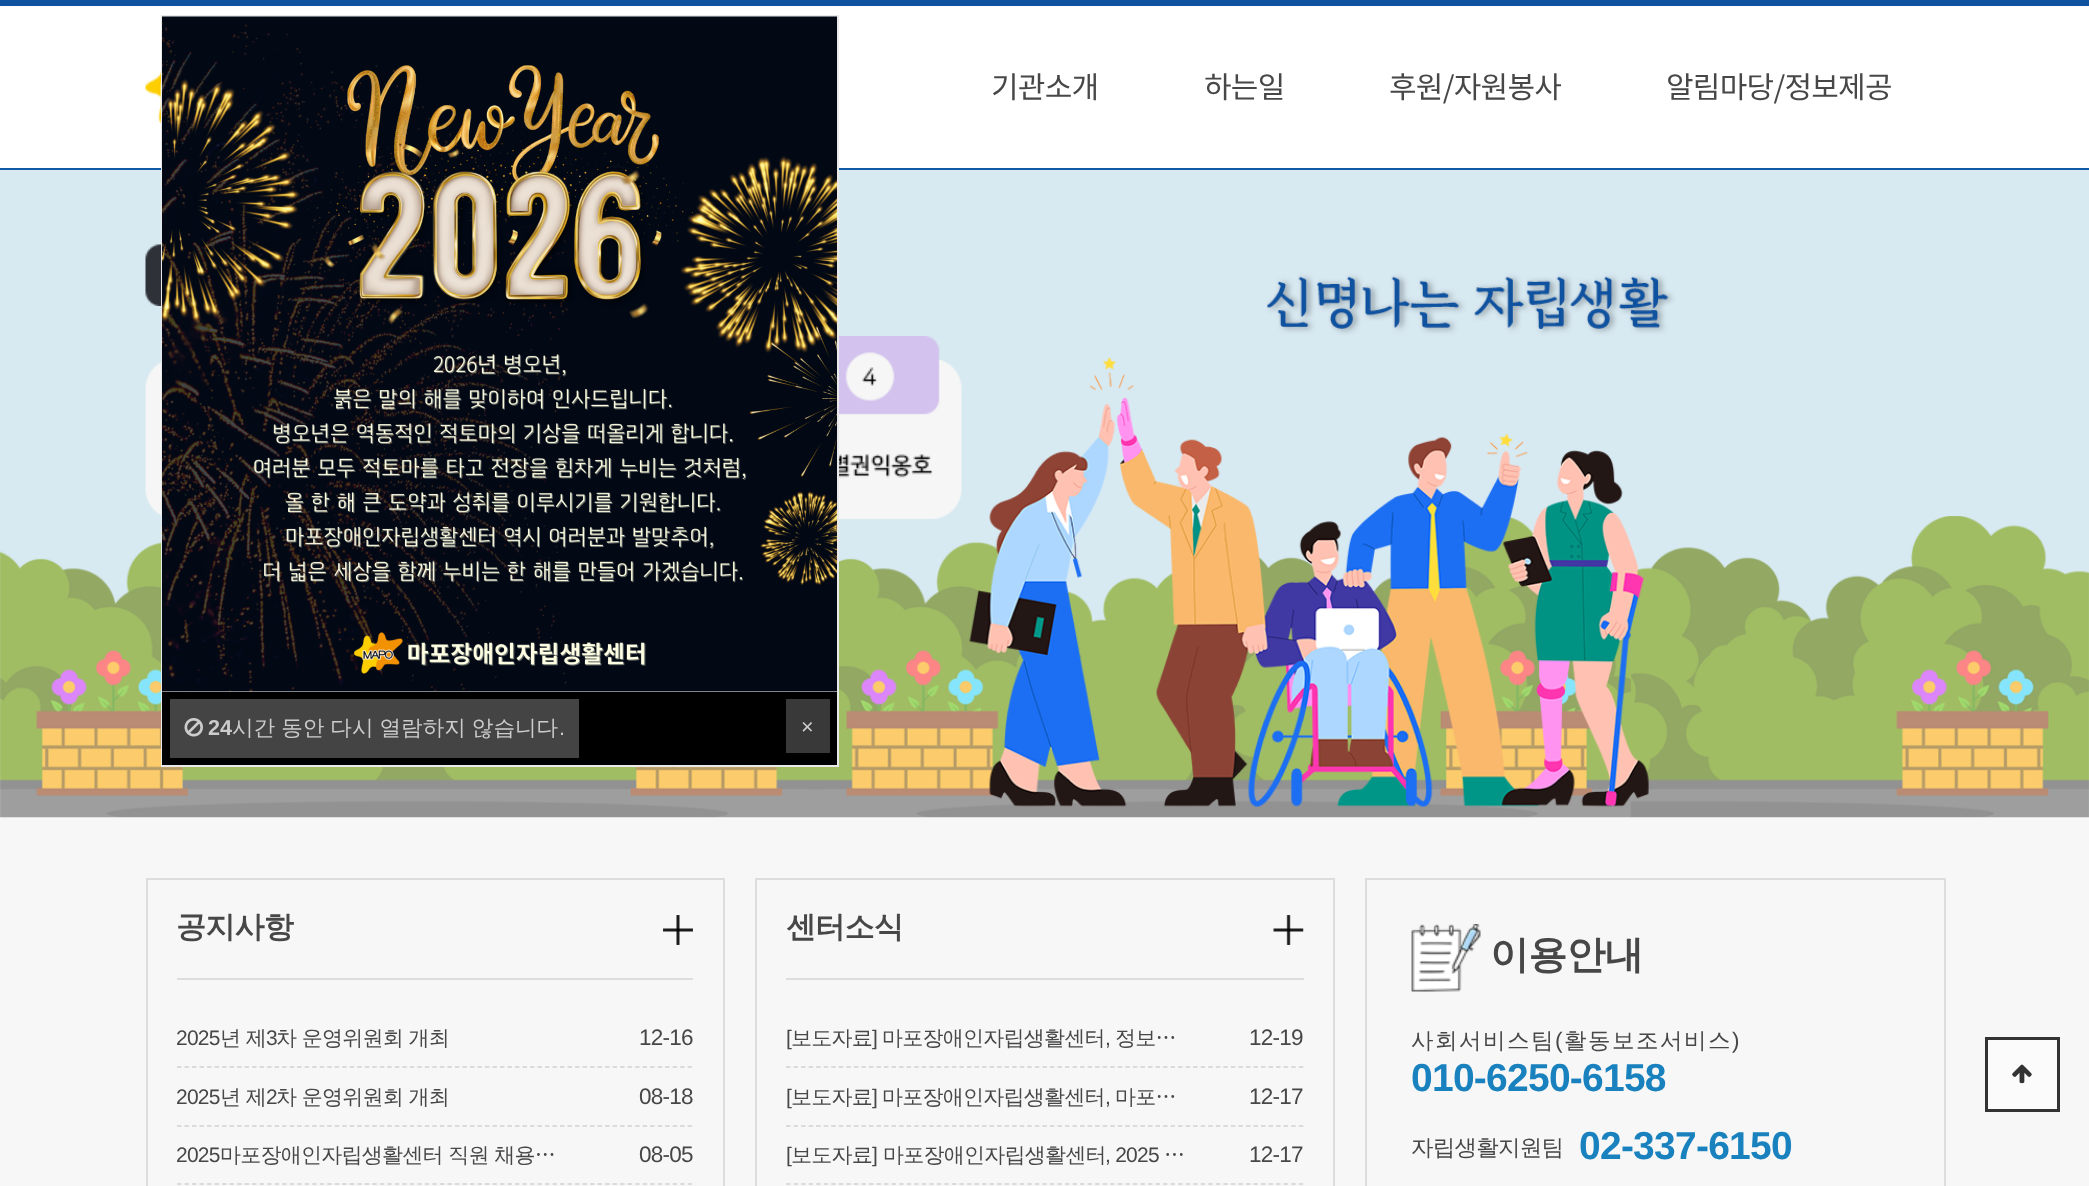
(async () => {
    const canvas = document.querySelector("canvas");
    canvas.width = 2089;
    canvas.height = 1186;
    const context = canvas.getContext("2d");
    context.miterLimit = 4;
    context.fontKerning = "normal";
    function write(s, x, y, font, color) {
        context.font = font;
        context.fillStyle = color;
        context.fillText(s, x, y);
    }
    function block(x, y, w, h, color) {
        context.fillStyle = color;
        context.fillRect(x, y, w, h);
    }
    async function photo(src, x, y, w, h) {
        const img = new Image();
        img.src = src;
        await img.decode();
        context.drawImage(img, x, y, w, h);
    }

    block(0, 0, 2089, 1186, "rgb(255, 255, 255)");
    block(0, 168, 2089, 2, "rgb(16, 88, 168)");
    block(0, 0, 2089, 6, "rgb(15, 83, 160)");
    await photo("media/1.png", 145, 70, 16, 53);
    context.letterSpacing = "-0.75px";
    write("기관소개", 991, 98, "30px Noto Sans KR", "rgb(71, 71, 71)");
    write("하는일", 1204, 98, "30px Noto Sans KR", "rgb(71, 71, 71)");
    write("후원/자원봉사", 1389, 98, "30px Noto Sans KR", "rgb(71, 71, 71)");
    write("알림마당/정보제공", 1666, 98, "30px Noto Sans KR", "rgb(71, 71, 71)");
    block(0, 170, 2089, 1016, "rgb(247, 247, 247)");
    await photo("media/4.png", 0, 170, 2089, 648);
    block(163, 691, 674, 1, "rgb(255, 255, 255)");
    context.strokeStyle = "rgb(233, 233, 233)";
    context.lineWidth = 2;
    context.strokeRect(162, 16, 676, 750);
    await photo("media/2.png", 162, 16, 675, 676);
    block(162, 692, 675, 73, "rgb(0, 0, 0)");
    block(170, 699, 409, 59, "rgb(68, 68, 68)");
    await photo("media/3.png", 184, 718, 19, 19);
    context.letterSpacing = "0px";
    write("24", 208, 735, "bold 21.6px Liberation Sans", "rgb(204, 204, 204)");
    context.wordSpacing = "-0.5px";
    write("시간 동안 다시 열람하지 않습니다", 232, 735, "500 21.6px WenQuanYi Zen Hei", "rgb(204, 204, 204)");
    context.wordSpacing = "0px";
    write(".", 559, 735, "21.6px Liberation Sans", "rgb(204, 204, 204)");
    block(786, 699, 44, 54, "rgb(57, 57, 57)");
    write("×", 801, 734, "21.6px Liberation Sans", "rgb(204, 204, 204)");
    await photo("media/5.png", 145, 244, 16, 62);
    await photo("media/6.png", 145, 361, 16, 156);
    await photo("media/7.png", 839, 336, 123, 183);
    context.strokeStyle = "rgb(221, 221, 221)";
    context.strokeRect(147, 879, 577, 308);
    block(177, 978, 516, 2, "rgb(221, 221, 221)");
    context.letterSpacing = "-0.75px";
    write("공지사항", 176, 937, "bold 30px WenQuanYi Zen Hei", "rgb(71, 71, 71)");
    await photo("media/8.png", 663, 915, 30, 30);
    context.beginPath();
    context.moveTo(177, 1067);
    context.lineTo(693, 1067);
    context.strokeStyle = "rgb(210, 210, 210)";
    context.lineWidth = 1.5;
    context.setLineDash([4.5, 3.01]);
    context.stroke();
    write("2025", 176, 1045, "21px Liberation Sans", "rgb(71, 71, 71)");
    write("년 제", 220, 1045, "500 21px WenQuanYi Zen Hei", "rgb(71, 71, 71)");
    write("3", 266, 1045, "21px Liberation Sans", "rgb(71, 71, 71)");
    write("차 운영위원회 개최", 276, 1045, "500 21px WenQuanYi Zen Hei", "rgb(71, 71, 71)");
    write("12-16", 639, 1045, "22.5px Liberation Sans", "rgb(71, 71, 71)");
    context.beginPath();
    context.moveTo(177, 1126);
    context.lineTo(693, 1126);
    context.stroke();
    write("2025", 176, 1104, "21px Liberation Sans", "rgb(71, 71, 71)");
    write("년 제", 220, 1104, "500 21px WenQuanYi Zen Hei", "rgb(71, 71, 71)");
    write("2", 266, 1104, "21px Liberation Sans", "rgb(71, 71, 71)");
    write("차 운영위원회 개최", 276, 1104, "500 21px WenQuanYi Zen Hei", "rgb(71, 71, 71)");
    write("08-18", 639, 1104, "22.5px Liberation Sans", "rgb(71, 71, 71)");
    context.beginPath();
    context.moveTo(177, 1184);
    context.lineTo(693, 1184);
    context.stroke();
    write("2025", 176, 1162, "21px Liberation Sans", "rgb(71, 71, 71)");
    write("마포장애인자립생활센터 직원 채용…", 220, 1162, "500 21px WenQuanYi Zen Hei", "rgb(71, 71, 71)");
    write("08-05", 639, 1162, "22.5px Liberation Sans", "rgb(71, 71, 71)");
    context.strokeStyle = "rgb(221, 221, 221)";
    context.lineWidth = 2;
    context.setLineDash([]);
    context.strokeRect(756, 879, 578, 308);
    block(786, 978, 518, 2, "rgb(221, 221, 221)");
    write("센터소식", 786, 937, "bold 30px WenQuanYi Zen Hei", "rgb(71, 71, 71)");
    await photo("media/9.png", 1273, 915, 31, 30);
    context.beginPath();
    context.moveTo(786, 1067);
    context.lineTo(1303.5, 1067);
    context.strokeStyle = "rgb(210, 210, 210)";
    context.lineWidth = 1.5;
    context.setLineDash([4.5, 3.04]);
    context.stroke();
    write("[", 786, 1045, "21px Liberation Sans", "rgb(71, 71, 71)");
    write("보도자료", 791, 1045, "500 21px WenQuanYi Zen Hei", "rgb(71, 71, 71)");
    write("]", 872, 1045, "21px Liberation Sans", "rgb(71, 71, 71)");
    write("마포장애인자립생활센터", 882, 1045, "500 21px WenQuanYi Zen Hei", "rgb(71, 71, 71)");
    write(",", 1105, 1045, "21px Liberation Sans", "rgb(71, 71, 71)");
    write("정보…", 1115, 1045, "500 21px WenQuanYi Zen Hei", "rgb(71, 71, 71)");
    write("12-19", 1249, 1045, "22.5px Liberation Sans", "rgb(71, 71, 71)");
    context.beginPath();
    context.moveTo(786, 1126);
    context.lineTo(1303.5, 1126);
    context.stroke();
    write("[", 786, 1104, "21px Liberation Sans", "rgb(71, 71, 71)");
    write("보도자료", 791, 1104, "500 21px WenQuanYi Zen Hei", "rgb(71, 71, 71)");
    write("]", 872, 1104, "21px Liberation Sans", "rgb(71, 71, 71)");
    write("마포장애인자립생활센터", 882, 1104, "500 21px WenQuanYi Zen Hei", "rgb(71, 71, 71)");
    write(",", 1105, 1104, "21px Liberation Sans", "rgb(71, 71, 71)");
    write("마포…", 1115, 1104, "500 21px WenQuanYi Zen Hei", "rgb(71, 71, 71)");
    write("12-17", 1249, 1104, "22.5px Liberation Sans", "rgb(71, 71, 71)");
    context.beginPath();
    context.moveTo(786, 1184);
    context.lineTo(1303.5, 1184);
    context.stroke();
    write("[", 786, 1162, "21px Liberation Sans", "rgb(71, 71, 71)");
    write("보도자료", 791, 1162, "500 21px WenQuanYi Zen Hei", "rgb(71, 71, 71)");
    write("]", 872, 1162, "21px Liberation Sans", "rgb(71, 71, 71)");
    write("마포장애인자립생활센터", 883, 1162, "500 21px WenQuanYi Zen Hei", "rgb(71, 71, 71)");
    write(", 2025", 1105, 1162, "21px Liberation Sans", "rgb(71, 71, 71)");
    write("…", 1164, 1162, "500 21px WenQuanYi Zen Hei", "rgb(71, 71, 71)");
    write("12-17", 1249, 1162, "22.5px Liberation Sans", "rgb(71, 71, 71)");
    context.strokeStyle = "rgb(221, 221, 221)";
    context.lineWidth = 2;
    context.setLineDash([]);
    context.strokeRect(1366, 879, 579, 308);
    await photo("media/10.png", 1411, 924, 70, 68);
    write("이용안내", 1490, 968, "bold 39px WenQuanYi Zen Hei", "rgb(71, 71, 71)");
    context.letterSpacing = "1.5px";
    write("사회서비스팀", 1411, 1048, "500 22.5px WenQuanYi Zen Hei", "rgb(71, 71, 71)");
    write("(", 1555, 1048, "22.5px Liberation Sans", "rgb(71, 71, 71)");
    write("활동보조서비스", 1564, 1048, "500 22.5px WenQuanYi Zen Hei", "rgb(71, 71, 71)");
    write(")", 1732, 1048, "22.5px Liberation Sans", "rgb(71, 71, 71)");
    context.letterSpacing = "-0.75px";
    write("010-6250-6158", 1411, 1091, "bold 39px Liberation Sans", "rgb(25, 130, 190)");
    write("자립생활지원팀", 1411, 1155, "500 22.5px WenQuanYi Zen Hei", "rgb(71, 71, 71)");
    write("02-337-6150", 1579, 1159, "bold 39px Liberation Sans", "rgb(25, 130, 190)");
    context.fillStyle = "rgb(251, 251, 251)";
    context.beginPath();
    context.rect(1986.5, 1038.5, 72, 72);
    context.fill();
    context.strokeStyle = "rgb(51, 51, 51)";
    context.lineWidth = 3;
    context.stroke();
    await photo("media/11.png", 2012, 1064, 20, 20);
})();
